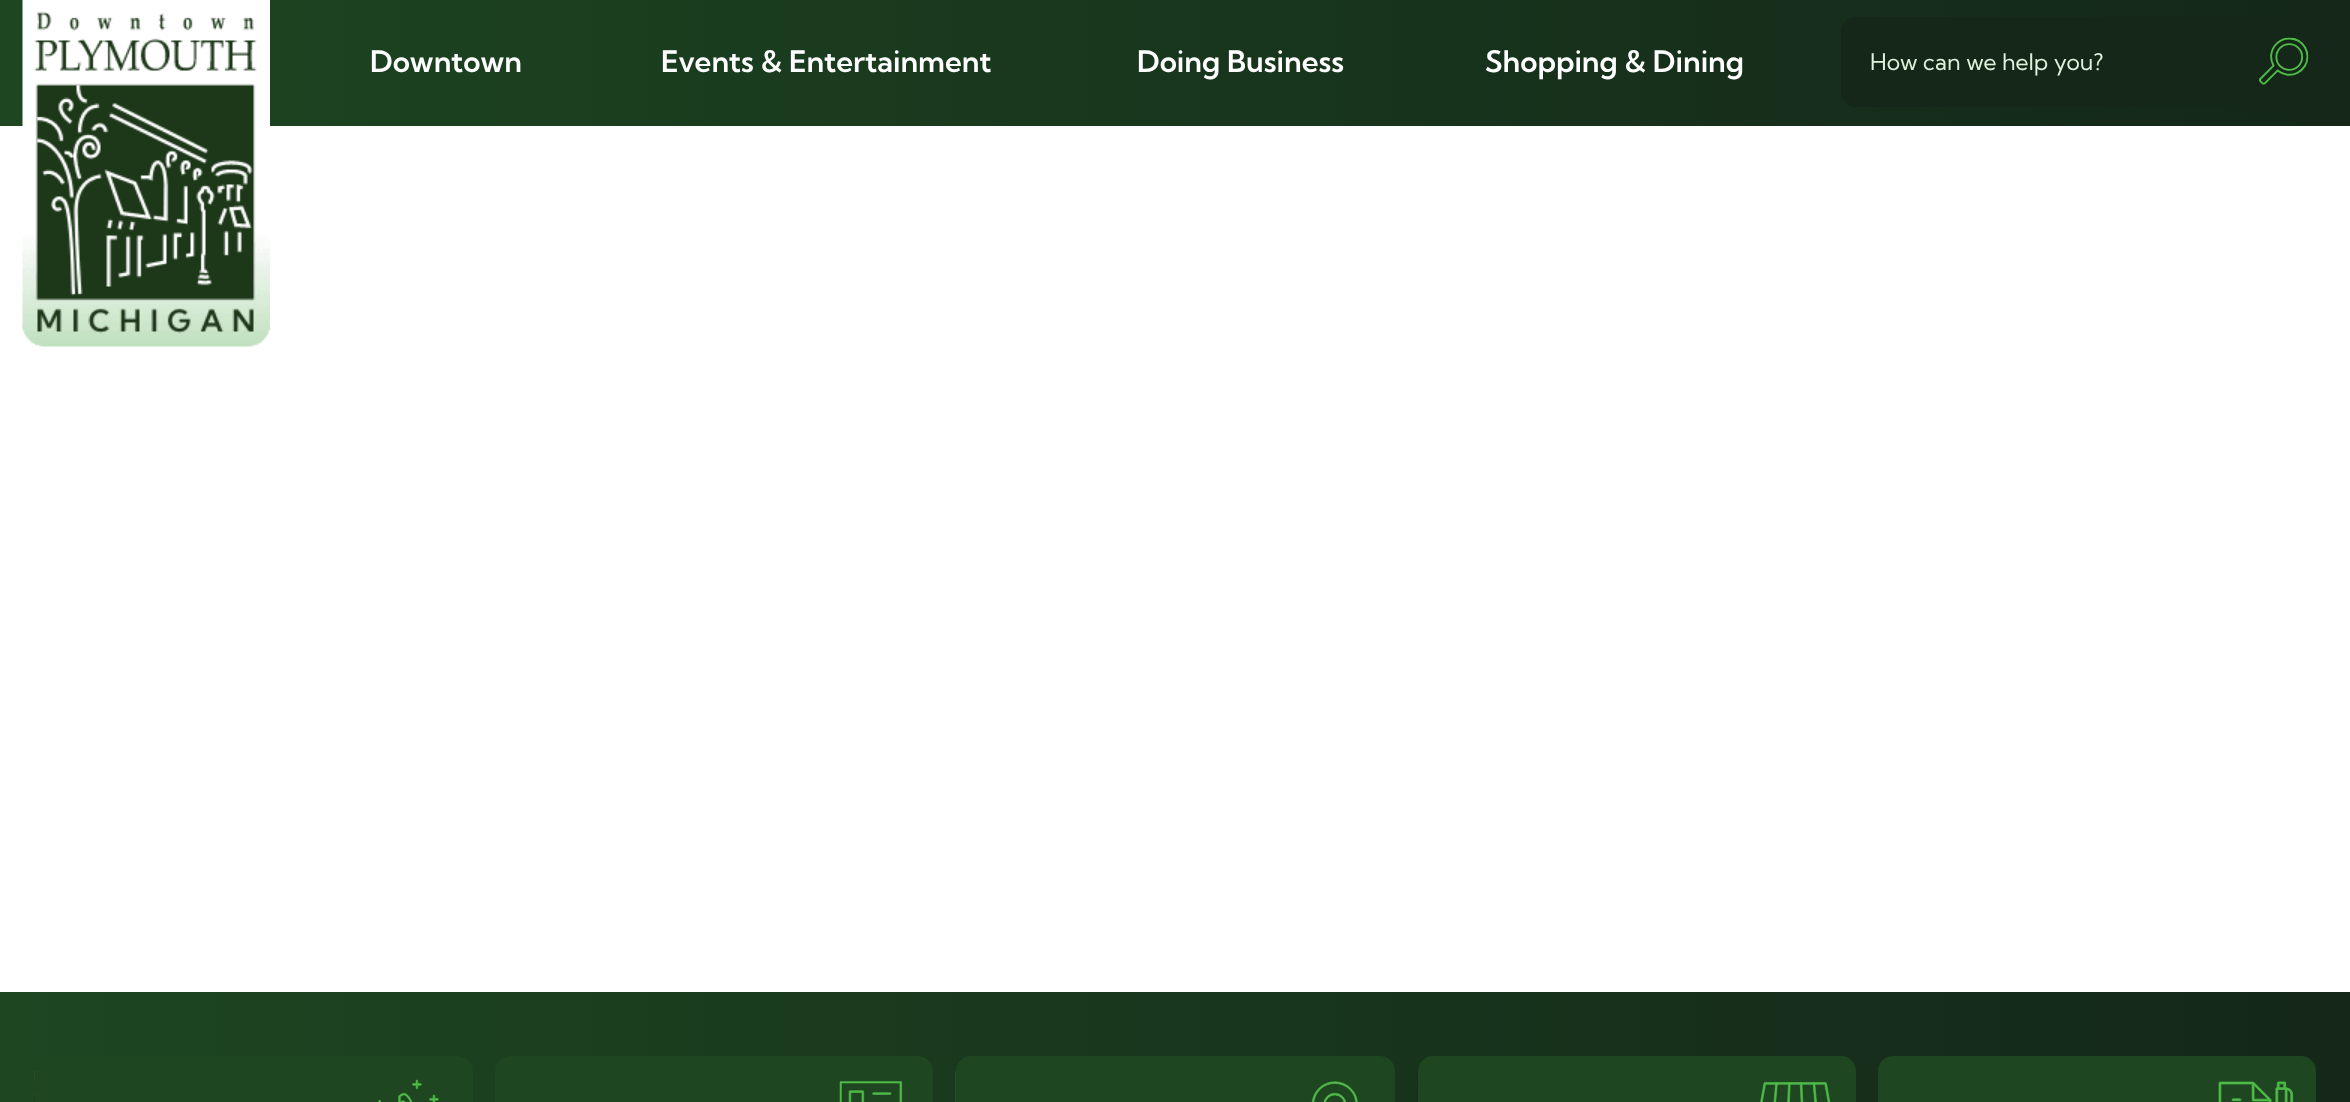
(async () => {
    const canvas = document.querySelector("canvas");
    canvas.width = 2350;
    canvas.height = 1102;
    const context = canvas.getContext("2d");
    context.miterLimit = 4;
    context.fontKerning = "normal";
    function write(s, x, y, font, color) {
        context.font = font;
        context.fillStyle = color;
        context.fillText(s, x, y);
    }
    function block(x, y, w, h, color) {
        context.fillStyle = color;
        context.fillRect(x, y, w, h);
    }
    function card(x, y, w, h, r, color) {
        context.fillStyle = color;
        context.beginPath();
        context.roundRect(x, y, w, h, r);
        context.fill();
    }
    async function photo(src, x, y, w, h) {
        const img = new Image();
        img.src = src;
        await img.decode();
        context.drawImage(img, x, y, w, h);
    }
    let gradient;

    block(0, 0, 2350, 1102, "rgb(255, 255, 255)");
    gradient = context.createLinearGradient(0, 63, 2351, 63);
    gradient.addColorStop(0, "rgb(29, 70, 33)");
    gradient.addColorStop(1, "rgb(20, 39, 25)");
    context.fillStyle = gradient;
    context.fillRect(0, 0, 2350, 126);
    await photo("media/1.png", 22, 0, 248, 347);
    write("Downtown", 370, 72, "600 29.6px Kumbh Sans", "rgb(255, 255, 255)");
    write("Events & Entertainment", 661, 72, "600 29.6px Kumbh Sans", "rgb(255, 255, 255)");
    write("Doing Business", 1137, 72, "600 29.6px Kumbh Sans", "rgb(255, 255, 255)");
    write("Shopping & Dining", 1485, 72, "600 29.6px Kumbh Sans", "rgb(255, 255, 255)");
    card(1841, 17, 487, 90, 15, "rgb(20, 39, 25)");
    write("How can we help you?", 1870, 70, "22.75px Kumbh Sans", "rgb(221, 243, 220)");
    await photo("media/2.png", 2259, 37, 50, 48);
    gradient = context.createLinearGradient(0, 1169, 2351, 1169);
    gradient.addColorStop(0, "rgb(29, 70, 33)");
    gradient.addColorStop(1, "rgb(20, 39, 25)");
    context.fillStyle = gradient;
    context.fillRect(0, 992, 2350, 110);
    await photo("media/3.png", 34, 1071, 1, 31);
    card(35, 1056, 438, 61, 15, "rgb(29, 70, 33)");
    await photo("media/4.png", 378, 1079, 61, 23);
    card(495, 1056, 438, 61, 15, "rgb(29, 70, 33)");
    await photo("media/5.png", 839, 1081, 64, 21);
    await photo("media/6.png", 955, 1071, 1, 31);
    card(956, 1056, 439, 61, 15, "rgb(29, 70, 33)");
    await photo("media/7.png", 1311, 1081, 47, 21);
    await photo("media/8.png", 1417, 1071, 1, 31);
    card(1418, 1056, 438, 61, 15, "rgb(29, 70, 33)");
    await photo("media/9.png", 1760, 1082, 71, 20);
    card(1878, 1056, 438, 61, 15, "rgb(29, 70, 33)");
    await photo("media/10.png", 2218, 1081, 76, 21);
})();
